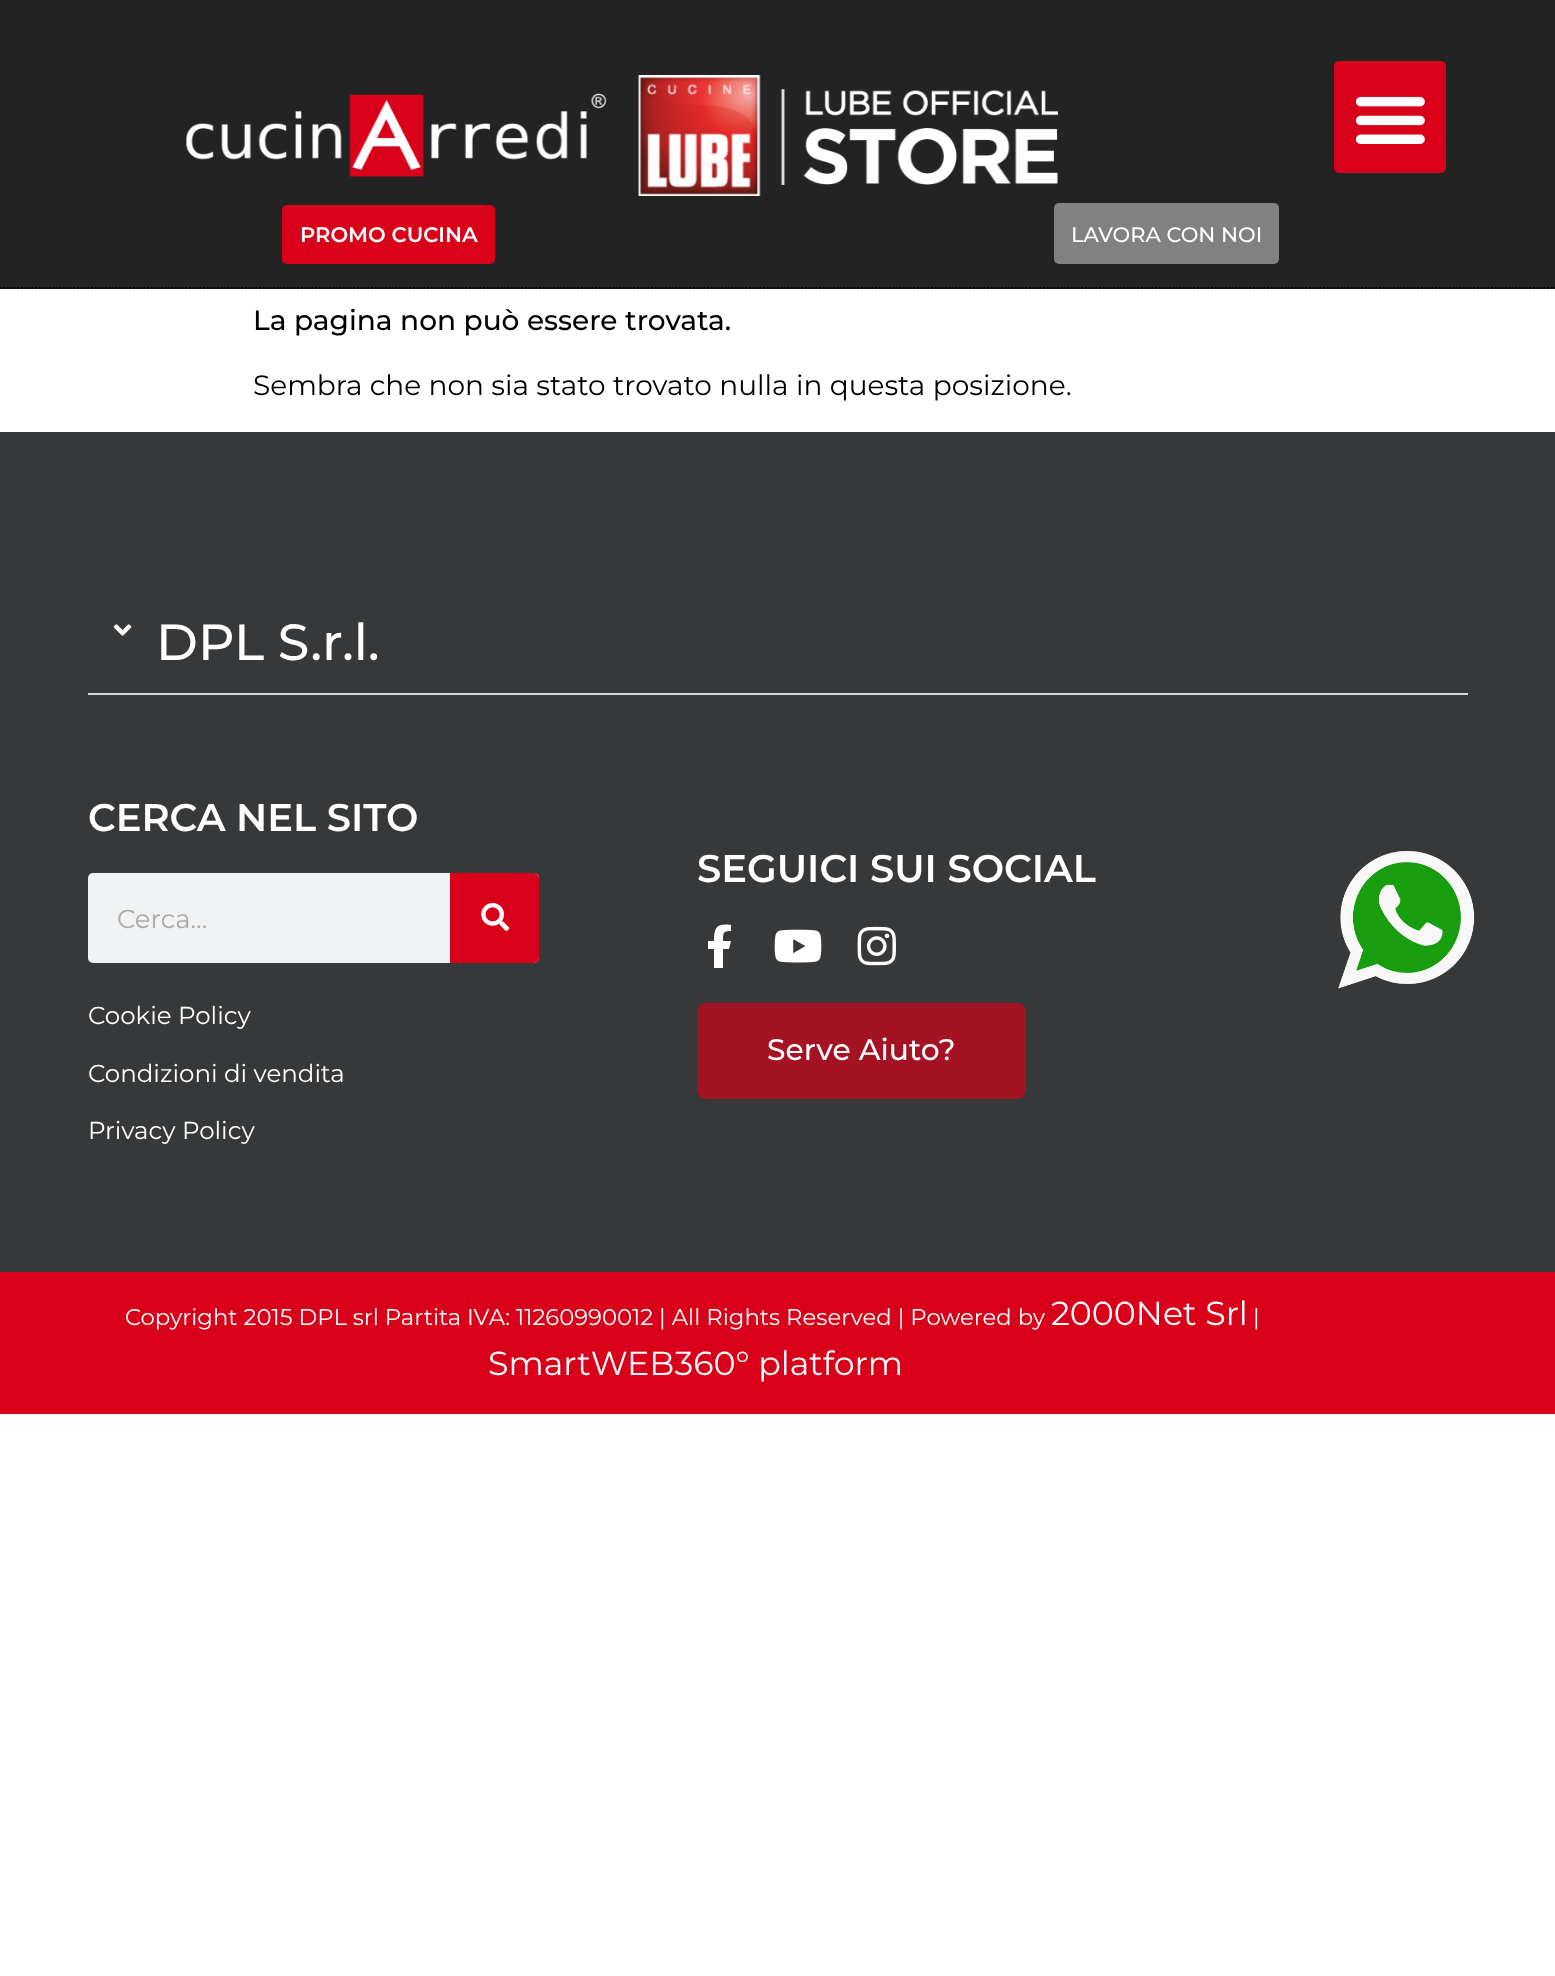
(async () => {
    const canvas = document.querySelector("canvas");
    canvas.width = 1555;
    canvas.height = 1976;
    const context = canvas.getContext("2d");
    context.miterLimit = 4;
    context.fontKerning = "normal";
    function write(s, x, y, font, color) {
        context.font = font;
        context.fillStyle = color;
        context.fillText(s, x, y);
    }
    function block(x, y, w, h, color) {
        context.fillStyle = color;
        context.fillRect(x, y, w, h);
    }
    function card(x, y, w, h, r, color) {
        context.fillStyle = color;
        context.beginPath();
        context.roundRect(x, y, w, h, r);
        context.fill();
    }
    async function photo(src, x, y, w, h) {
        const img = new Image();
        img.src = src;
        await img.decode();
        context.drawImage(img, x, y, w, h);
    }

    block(0, 0, 1555, 1976, "rgb(255, 255, 255)");
    block(0, 0, 1555, 289, "rgb(36, 35, 35)");
    context.beginPath();
    context.moveTo(0, 288);
    context.lineTo(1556, 288);
    context.strokeStyle = "rgb(0, 0, 0)";
    context.lineWidth = 1.8;
    context.setLineDash([1.75, 1.75]);
    context.stroke();
    await photo("media/1.png", 186, 75, 872, 121);
    card(1334, 61, 112, 112, 5, "rgb(217, 0, 26)");
    await photo("media/2.png", 1355, 96, 70, 48);
    card(282, 205, 213, 59, 5, "rgb(217, 0, 26)");
    write("PROMO CUCINA", 300, 242, "600 21px Montserrat", "rgb(255, 255, 255)");
    card(1054, 203, 225, 61, 5, "rgb(129, 129, 129)");
    write("LAVORA CON NOI", 1071, 242, "500 21px Montserrat", "rgb(255, 255, 255)");
    write("La pagina non può essere trovata.", 253, 330, "500 28px Montserrat", "rgb(0, 0, 0)");
    write("Sembra che non sia stato trovato nulla in questa posizione.", 253, 395, "28px Montserrat", "rgb(0, 0, 0)");
    block(0, 432, 1555, 840, "rgb(54, 56, 57)");
    block(88, 693, 1380, 2, "rgb(213, 216, 220)");
    await photo("media/3.png", 113, 624, 19, 12);
    write("DPL S.r.l.", 156, 660, "500 50.75px Montserrat", "rgb(255, 255, 255)");
    write("CERCA NEL SITO", 88, 831, "600 38.5px Montserrat", "rgb(255, 255, 255)");
    card(88, 873, 451, 90, 5, "rgb(241, 242, 243)");
    write("Cerca...", 117, 928, "26px Montserrat", "rgb(170, 170, 170)");
    context.fillStyle = "rgb(217, 0, 26)";
    context.beginPath();
    context.roundRect(450, 873, 89, 90, [0, 5, 5, 0]);
    context.fill();
    await photo("media/4.png", 481, 903, 29, 28);
    write("Cookie Policy", 88, 1024, "24.5px Montserrat", "rgb(255, 255, 255)");
    write("Condizioni di vendita", 88, 1082, "24.5px Montserrat", "rgb(255, 255, 255)");
    write("Privacy Policy", 88, 1139, "24.5px Montserrat", "rgb(255, 255, 255)");
    write("SEGUICI SUI SOCIAL", 697, 882, "600 38.5px Montserrat", "rgb(255, 255, 255)");
    context.beginPath();
    context.moveTo(729, 949);
    context.lineTo(723, 949);
    context.lineTo(723, 968);
    context.lineTo(714, 968);
    context.lineTo(714, 949);
    context.lineTo(708, 949);
    context.lineTo(708, 941);
    context.lineTo(714, 941);
    context.bezierCurveTo(714, 927, 717, 923, 731, 925);
    context.lineTo(731, 931);
    context.bezierCurveTo(723, 931, 723, 933, 723, 941);
    context.lineTo(731, 941);
    context.closePath();
    context.fill();
    await photo("media/5.png", 774, 929, 48, 34);
    await photo("media/6.png", 857, 926, 39, 40);
    card(697, 1003, 329, 96, 9, "rgb(165, 18, 36)");
    write("Serve Aiuto?", 767, 1060, "500 29.75px Montserrat", "rgb(255, 255, 255)");
    await photo("media/7.png", 1338, 851, 137, 138);
    block(0, 1272, 1555, 142, "rgb(217, 0, 26)");
    write("Copyright 2015 DPL srl Partita IVA: 11260990012 | All Rights Reserved | Powered by", 125, 1325, "22.75px Montserrat", "rgb(255, 255, 255)");
    write("2000Net Srl", 1051, 1325, "33.25px Montserrat", "rgb(255, 255, 255)");
    write("|", 1253, 1325, "22.75px Montserrat", "rgb(255, 255, 255)");
    write("SmartWEB360° platform", 488, 1375, "33.25px Montserrat", "rgb(255, 255, 255)");
})();
